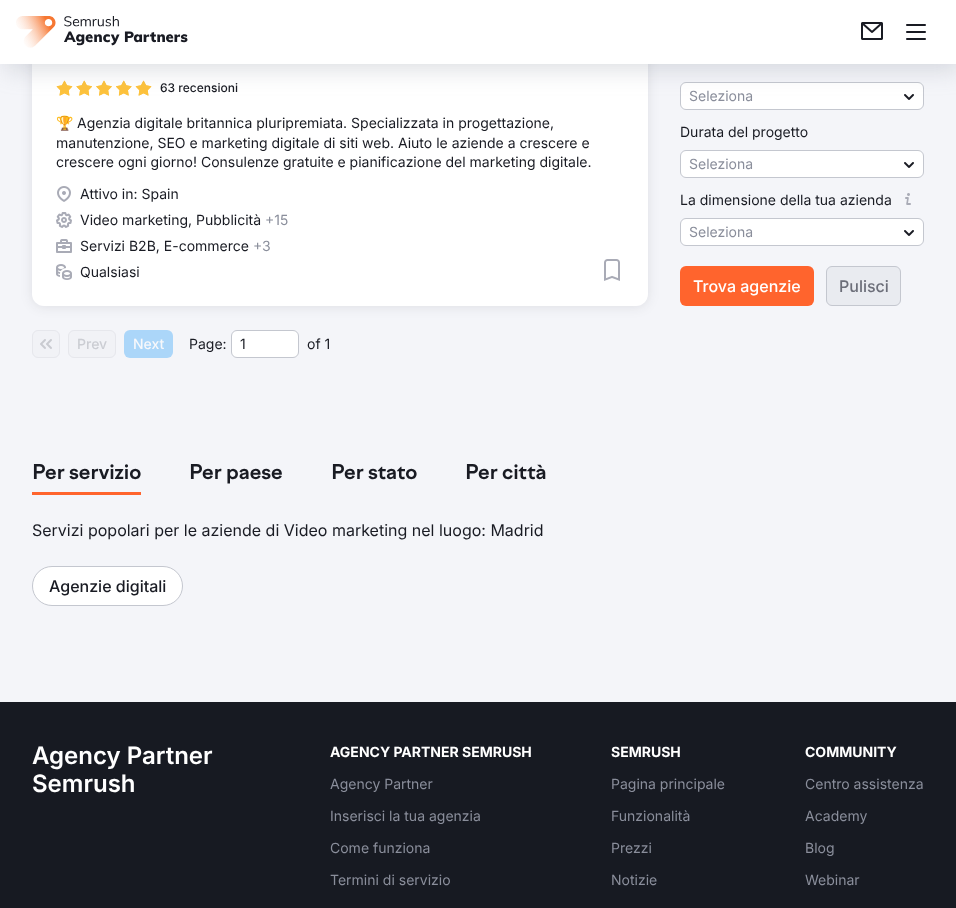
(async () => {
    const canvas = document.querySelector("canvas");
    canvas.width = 956;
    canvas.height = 908;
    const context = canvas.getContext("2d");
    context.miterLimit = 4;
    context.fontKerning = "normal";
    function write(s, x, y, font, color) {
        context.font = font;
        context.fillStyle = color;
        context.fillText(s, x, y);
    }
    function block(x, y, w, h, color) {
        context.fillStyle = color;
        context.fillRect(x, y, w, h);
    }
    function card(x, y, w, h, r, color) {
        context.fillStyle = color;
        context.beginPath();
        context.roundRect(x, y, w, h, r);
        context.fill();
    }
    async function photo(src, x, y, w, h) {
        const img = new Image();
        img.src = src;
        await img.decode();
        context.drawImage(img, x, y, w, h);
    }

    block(0, 0, 956, 908, "rgb(244, 245, 249)");
    context.fillStyle = "rgba(25, 27, 35, 0.1)";
    context.filter = "blur(6px)";
    context.beginPath();
    context.roundRect(32, -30, 616, 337, 12);
    context.fill();
    context.filter = "none";
    card(32, -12, 616, 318, 12, "rgb(255, 255, 255)");
    await photo("media/4.png", 56, 80, 96, 16);
    context.beginPath();
    context.roundRect(680.5, 82.5, 243, 27, 5.5);
    context.fill();
    context.strokeStyle = "rgb(196, 199, 207)";
    context.stroke();
    await photo("media/10.png", 904, 94, 10, 6);
    context.fillStyle = "rgba(137, 141, 154, 0.3)";
    context.filter = "blur(12.5px)";
    context.beginPath();
    context.rect(5, 5, 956, 64);
    context.fill();
    context.filter = "none";
    block(0, 0, 956, 64, "rgb(255, 255, 255)");
    await photo("media/1.png", 16, 16, 172, 32);
    await photo("media/2.png", 861, 22, 22, 18);
    await photo("media/3.png", 906, 24, 20, 16);
    write("63 recensioni", 160, 92, "500 12px Inter", "rgb(25, 27, 35)");
    write("🏆", 56, 128, "14px Noto Color Emoji", "rgb(25, 27, 35)");
    write("Agenzia digitale britannica pluripremiata. Specializzata in progettazione,", 77, 128, "14px Inter", "rgb(25, 27, 35)");
    write("manutenzione, SEO e marketing digitale di siti web. Aiuto le aziende a crescere e", 56, 148, "14px Inter", "rgb(25, 27, 35)");
    write("crescere ogni giorno! Consulenze gratuite e pianificazione del marketing digitale.", 56, 167, "14px Inter", "rgb(25, 27, 35)");
    await photo("media/5.png", 57, 186, 14, 16);
    write("Attivo in: Spain", 80, 199, "14px Inter", "rgb(25, 27, 35)");
    await photo("media/6.png", 56, 212, 16, 16);
    write("Video marketing, Pubblicità", 80, 225, "14px Inter", "rgb(25, 27, 35)");
    write("+15", 265, 225, "14px Inter", "rgb(138, 142, 155)");
    await photo("media/7.png", 56, 239, 16, 14);
    write("Servizi B2B, E-commerce", 80, 251, "14px Inter", "rgb(25, 27, 35)");
    write("+3", 253, 251, "14px Inter", "rgb(138, 142, 155)");
    await photo("media/8.png", 56, 264, 16, 16);
    write("Qualsiasi", 80, 277, "14px Inter", "rgb(25, 27, 35)");
    await photo("media/9.png", 604, 259, 16, 22);
    write("Seleziona", 689, 101, "14px Inter", "rgb(138, 142, 155)");
    write("Durata del progetto", 680, 137, "14px Inter", "rgb(25, 27, 35)");
    context.fillStyle = "rgb(255, 255, 255)";
    context.beginPath();
    context.roundRect(680.5, 150.5, 243, 27, 5.5);
    context.fill();
    context.stroke();
    write("Seleziona", 689, 169, "14px Inter", "rgb(138, 142, 155)");
    await photo("media/10.png", 904, 162, 10, 6);
    write("La dimensione della tua azienda", 680, 205, "14px Inter", "rgb(25, 27, 35)");
    await photo("media/11.png", 905, 193, 6, 12);
    context.fillStyle = "rgb(255, 255, 255)";
    context.beginPath();
    context.roundRect(680.5, 218.5, 243, 27, 5.5);
    context.fill();
    context.stroke();
    write("Seleziona", 689, 237, "14px Inter", "rgb(138, 142, 155)");
    await photo("media/10.png", 904, 230, 10, 6);
    card(680, 266, 134, 40, 6, "rgb(255, 100, 45)");
    write("Trova agenzie", 693, 292, "500 16px Inter", "rgb(255, 255, 255)");
    context.fillStyle = "rgb(233, 235, 240)";
    context.beginPath();
    context.roundRect(826.5, 266.5, 74, 39, 5.5);
    context.fill();
    context.stroke();
    write("Pulisci", 839, 292, "500 16px Inter", "rgb(108, 110, 121)");
    context.fillStyle = "rgb(241, 242, 246)";
    context.beginPath();
    context.roundRect(32.5, 330.5, 27, 27, 5.5);
    context.fill();
    context.strokeStyle = "rgb(230, 231, 236)";
    context.stroke();
    await photo("media/12.png", 40, 339, 12, 10);
    context.beginPath();
    context.roundRect(68.5, 330.5, 47, 27, 5.5);
    context.fill();
    context.stroke();
    write("Prev", 77, 349, "500 14px Inter", "rgb(203, 205, 211)");
    card(124, 330, 49, 28, 6, "rgb(171, 214, 249)");
    write("Next", 133, 349, "500 14px Inter", "rgb(247, 248, 251)");
    write("Page:", 189, 349, "14px Inter", "rgb(25, 27, 35)");
    context.fillStyle = "rgb(255, 255, 255)";
    context.beginPath();
    context.roundRect(231.5, 330.5, 67, 27, 5.5);
    context.fill();
    context.strokeStyle = "rgb(196, 199, 207)";
    context.stroke();
    write("1", 240, 349, "14px Inter", "rgb(25, 27, 35)");
    write("of 1", 307, 349, "14px Inter", "rgb(25, 27, 35)");
    write("Per servizio", 32, 479, "bold 20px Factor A", "rgb(25, 27, 35)");
    block(32, 492, 109, 3, "rgb(255, 100, 45)");
    write("Per paese", 189, 479, "bold 20px Factor A", "rgb(25, 27, 35)");
    write("Per stato", 331, 479, "bold 20px Factor A", "rgb(25, 27, 35)");
    write("Per città", 465, 479, "bold 20px Factor A", "rgb(25, 27, 35)");
    write("Servizi popolari per le aziende di Video marketing nel luogo: Madrid", 32, 536, "16px Inter", "rgb(25, 27, 35)");
    context.fillStyle = "rgb(255, 255, 255)";
    context.beginPath();
    context.roundRect(32.5, 566.5, 150, 39, 19.5);
    context.fill();
    context.stroke();
    write("Agenzie digitali", 49, 592, "500 16px Inter", "rgb(25, 27, 35)");
    block(0, 702, 956, 206, "rgb(23, 26, 34)");
    write("Agency Partner", 32, 764, "600 24px Inter", "rgb(255, 255, 255)");
    write("Semrush", 32, 792, "600 24px Inter", "rgb(255, 255, 255)");
    write("AGENCY PARTNER SEMRUSH", 330, 757, "bold 14px Inter", "rgb(255, 255, 255)");
    write("Agency Partner", 330, 789, "14px Inter", "rgb(138, 142, 155)");
    write("Inserisci la tua agenzia", 330, 821, "14px Inter", "rgb(138, 142, 155)");
    write("Come funziona", 330, 853, "14px Inter", "rgb(138, 142, 155)");
    write("Termini di servizio", 330, 885, "14px Inter", "rgb(138, 142, 155)");
    write("SEMRUSH", 611, 757, "bold 14px Inter", "rgb(255, 255, 255)");
    write("Pagina principale", 611, 789, "14px Inter", "rgb(138, 142, 155)");
    write("Funzionalità", 611, 821, "14px Inter", "rgb(138, 142, 155)");
    write("Prezzi", 611, 853, "14px Inter", "rgb(138, 142, 155)");
    write("Notizie", 611, 885, "14px Inter", "rgb(138, 142, 155)");
    write("COMMUNITY", 805, 757, "bold 14px Inter", "rgb(255, 255, 255)");
    write("Centro assistenza", 805, 789, "14px Inter", "rgb(138, 142, 155)");
    write("Academy", 805, 821, "14px Inter", "rgb(138, 142, 155)");
    write("Blog", 805, 853, "14px Inter", "rgb(138, 142, 155)");
    write("Webinar", 805, 885, "14px Inter", "rgb(138, 142, 155)");
})();
